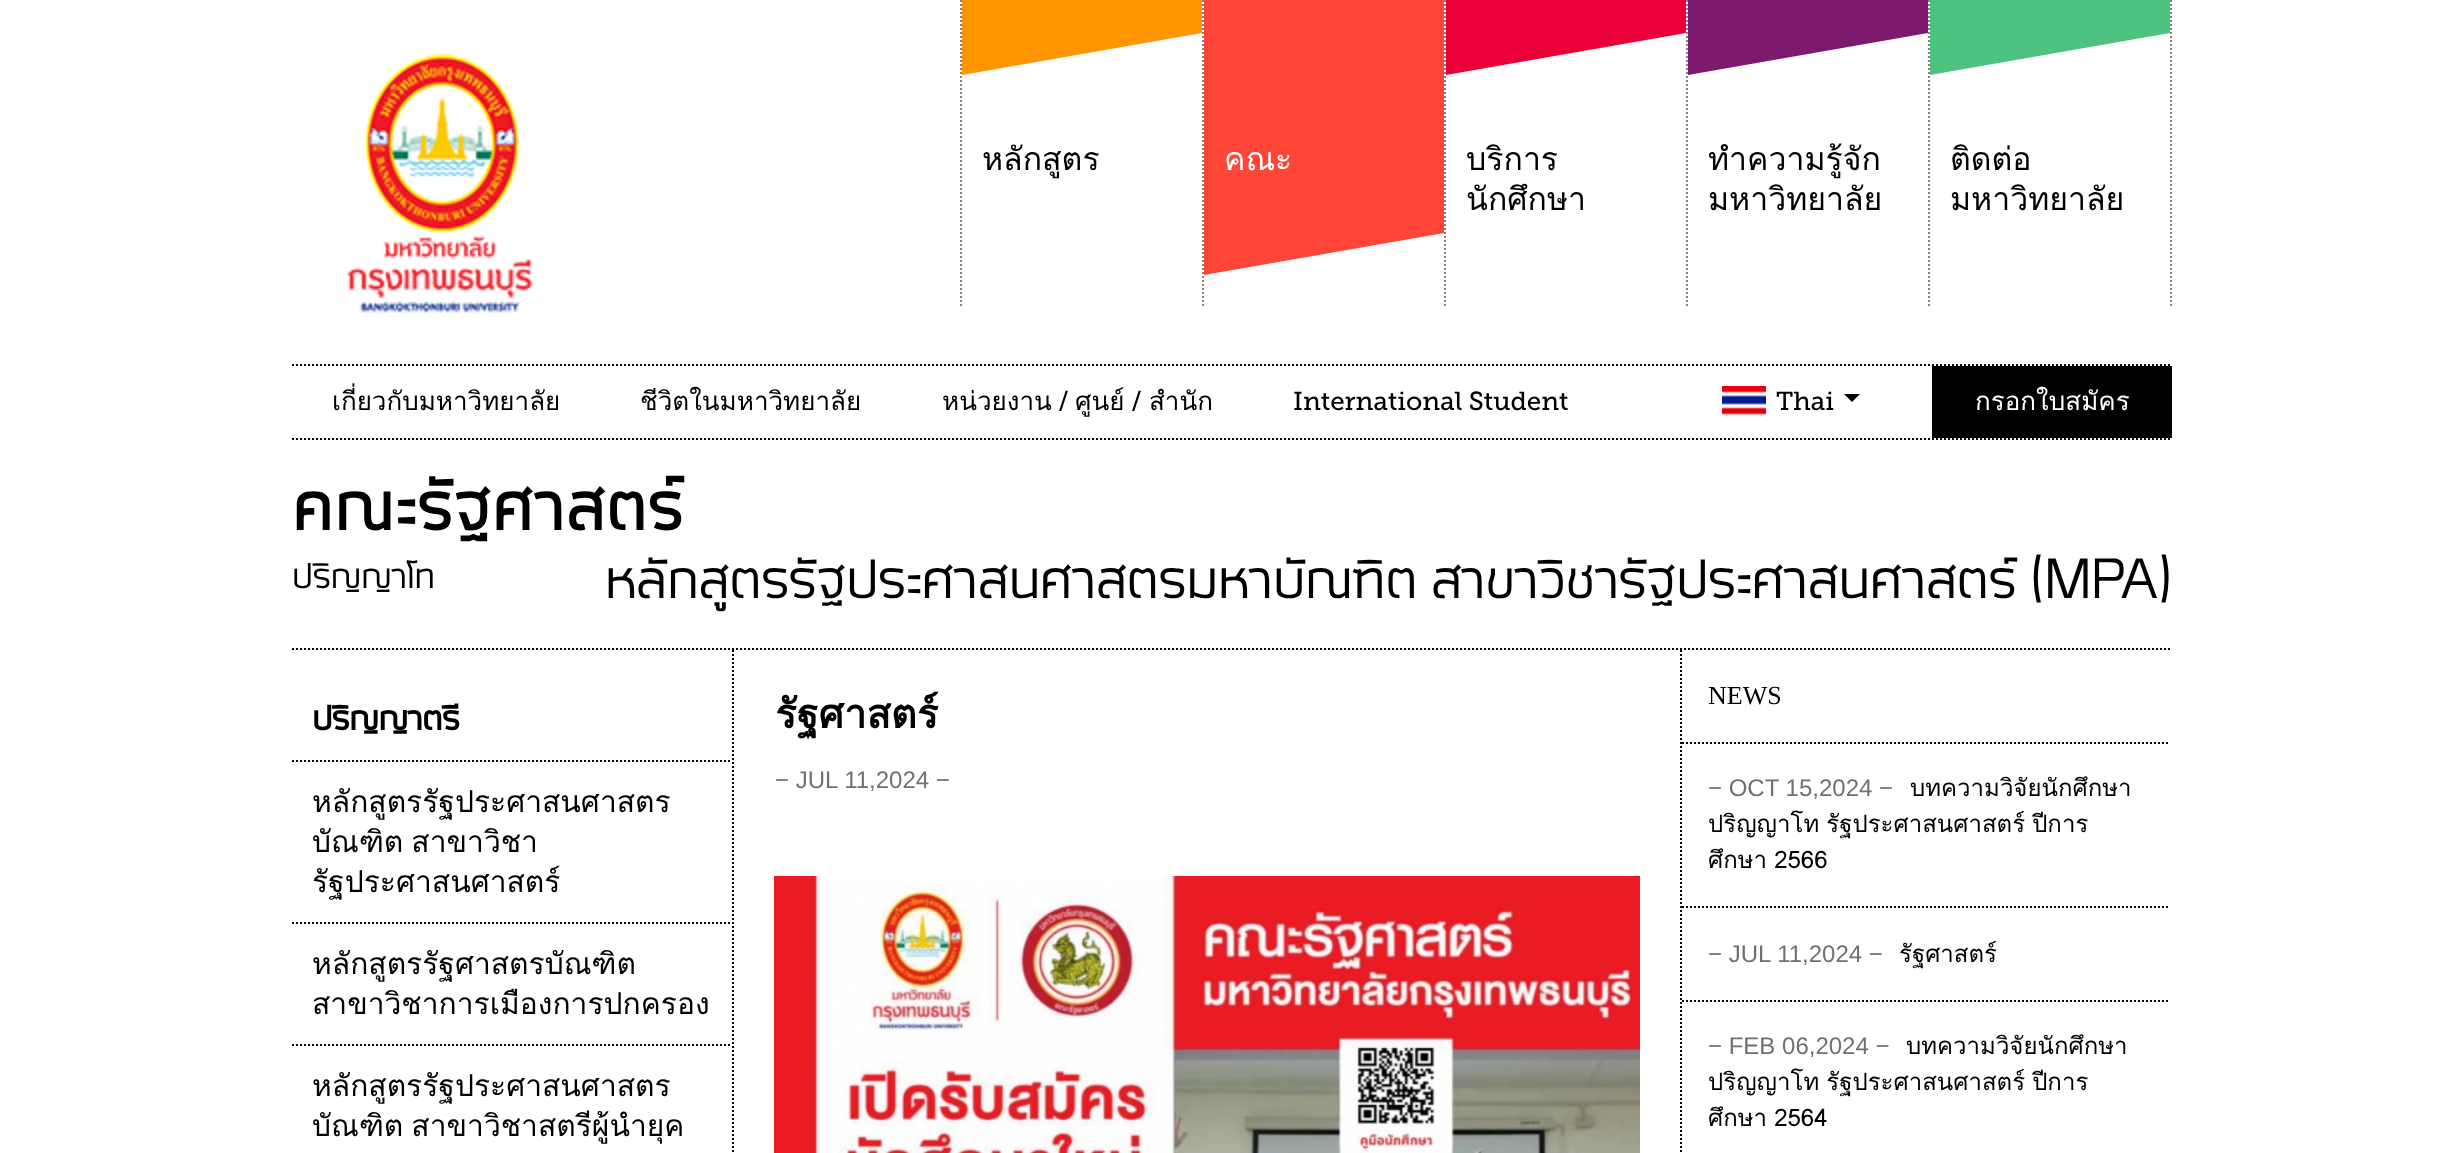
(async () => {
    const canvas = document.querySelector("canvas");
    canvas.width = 2464;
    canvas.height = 1153;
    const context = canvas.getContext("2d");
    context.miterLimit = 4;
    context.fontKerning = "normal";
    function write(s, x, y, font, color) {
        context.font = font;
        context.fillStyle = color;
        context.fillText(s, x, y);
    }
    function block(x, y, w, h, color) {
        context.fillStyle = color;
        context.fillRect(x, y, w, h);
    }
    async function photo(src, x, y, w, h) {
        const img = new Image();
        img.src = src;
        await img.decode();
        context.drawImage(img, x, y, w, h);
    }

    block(0, 0, 2464, 1153, "rgb(255, 255, 255)");
    await photo("media/1.png", 347, 53, 186, 260);
    context.beginPath();
    context.moveTo(1203, 0);
    context.lineTo(1203, 308);
    context.strokeStyle = "rgb(132, 132, 132)";
    context.lineWidth = 2;
    context.setLineDash([2, 2]);
    context.stroke();
    context.beginPath();
    context.moveTo(961, 0);
    context.lineTo(961, 308);
    context.stroke();
    context.fillStyle = "rgb(255, 150, 0)";
    context.beginPath();
    context.moveTo(962, -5);
    context.lineTo(1202, -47);
    context.lineTo(1202, 33);
    context.lineTo(962, 75);
    context.closePath();
    context.fill();
    write("หลักสูตร", 982, 170, "32px Loma", "rgb(0, 0, 0)");
    context.beginPath();
    context.moveTo(1445, 0);
    context.lineTo(1445, 308);
    context.stroke();
    context.fillStyle = "rgb(255, 69, 55)";
    context.beginPath();
    context.moveTo(1204, -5);
    context.lineTo(1444, -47);
    context.lineTo(1444, 233);
    context.lineTo(1204, 275);
    context.closePath();
    context.fill();
    write("คณะ", 1224, 170, "32px Loma", "rgb(255, 255, 255)");
    context.beginPath();
    context.moveTo(1687, 0);
    context.lineTo(1687, 308);
    context.stroke();
    context.fillStyle = "rgb(233, 0, 55)";
    context.beginPath();
    context.moveTo(1446, -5);
    context.lineTo(1686, -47);
    context.lineTo(1686, 33);
    context.lineTo(1446, 75);
    context.closePath();
    context.fill();
    write("บริการ", 1466, 170, "32px Loma", "rgb(0, 0, 0)");
    write("นักศึกษา", 1466, 210, "32px Loma", "rgb(0, 0, 0)");
    context.beginPath();
    context.moveTo(1929, 0);
    context.lineTo(1929, 308);
    context.stroke();
    context.fillStyle = "rgb(126, 26, 109)";
    context.beginPath();
    context.moveTo(1688, -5);
    context.lineTo(1928, -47);
    context.lineTo(1928, 33);
    context.lineTo(1688, 75);
    context.closePath();
    context.fill();
    write("ทำความรู้จัก", 1708, 170, "32px Loma", "rgb(0, 0, 0)");
    write("มหาวิทยาลัย", 1708, 210, "32px Loma", "rgb(0, 0, 0)");
    context.beginPath();
    context.moveTo(2171, 0);
    context.lineTo(2171, 308);
    context.stroke();
    context.fillStyle = "rgb(78, 194, 127)";
    context.beginPath();
    context.moveTo(1930, -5);
    context.lineTo(2170, -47);
    context.lineTo(2170, 33);
    context.lineTo(1930, 75);
    context.closePath();
    context.fill();
    write("ติดต่อ", 1950, 170, "32px Loma", "rgb(0, 0, 0)");
    write("มหาวิทยาลัย", 1950, 210, "32px Loma", "rgb(0, 0, 0)");
    context.beginPath();
    context.moveTo(292, 365);
    context.lineTo(2172, 365);
    context.strokeStyle = "rgb(0, 0, 0)";
    context.stroke();
    context.beginPath();
    context.moveTo(292, 439);
    context.lineTo(2172, 439);
    context.stroke();
    write("เกี่ยวกับมหาวิทยาลัย", 332, 410, "26px Loma", "rgb(0, 0, 0)");
    write("ชีวิตในมหาวิทยาลัย", 640, 410, "26px Loma", "rgb(0, 0, 0)");
    write("หน่วยงาน", 942, 410, "26px Loma", "rgb(0, 0, 0)");
    write("/", 1058, 410, "26px Museo Slab", "rgb(0, 0, 0)");
    write("ศูนย์", 1075, 410, "26px Loma", "rgb(0, 0, 0)");
    write("/", 1131, 410, "26px Museo Slab", "rgb(0, 0, 0)");
    write("สำนัก", 1149, 410, "26px Loma", "rgb(0, 0, 0)");
    write("International Student", 1293, 410, "26px Museo Slab", "rgb(0, 0, 0)");
    await photo("media/2.png", 1722, 386, 44, 29);
    write("Thai", 1776, 410, "26px Museo Slab", "rgb(0, 0, 0)");
    context.beginPath();
    context.moveTo(1844, 394);
    context.lineTo(1860, 394);
    context.lineTo(1852, 402);
    context.closePath();
    context.fill();
    block(1932, 366, 240, 72, "rgb(0, 0, 0)");
    write("กรอกใบสมัคร", 1975, 410, "26px Loma", "rgb(255, 255, 255)");
    context.beginPath();
    context.moveTo(292, 649);
    context.lineTo(2172, 649);
    context.stroke();
    write("คณะรัฐศาสตร์", 292, 530, "bold 96px 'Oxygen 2'", "rgb(0, 0, 0)");
    write("ปริญญาโท", 292, 588, "48px Oxygen", "rgb(0, 0, 0)");
    write("หลักสูตรรัฐประศาสนศาสตรมหาบัณฑิต สาขาวิชารัฐประศาสนศาสตร์ (MPA)", 605, 598, "74px Oxygen", "rgb(0, 0, 0)");
    context.beginPath();
    context.moveTo(292, 761);
    context.lineTo(732, 761);
    context.stroke();
    write("ปริญญาตรี", 312, 730, "bold 46px Oxygen", "rgb(0, 0, 0)");
    context.beginPath();
    context.moveTo(292, 923);
    context.lineTo(732, 923);
    context.stroke();
    write("หลักสูตรรัฐประศาสนศาสตร", 312, 812, "30px Loma", "rgb(0, 0, 0)");
    context.wordSpacing = "-2px";
    write("บัณฑิต สาขาวิชา", 312, 852, "30px Loma", "rgb(0, 0, 0)");
    context.wordSpacing = "0px";
    write("รัฐประศาสนศาสตร์", 312, 892, "30px Loma", "rgb(0, 0, 0)");
    context.beginPath();
    context.moveTo(292, 1045);
    context.lineTo(732, 1045);
    context.stroke();
    write("หลักสูตรรัฐศาสตรบัณฑิต", 312, 974, "30px Loma", "rgb(0, 0, 0)");
    write("สาขาวิชาการเมืองการปกครอง", 312, 1014, "30px Loma", "rgb(0, 0, 0)");
    write("หลักสูตรรัฐประศาสนศาสตร", 312, 1096, "30px Loma", "rgb(0, 0, 0)");
    context.wordSpacing = "-2px";
    write("บัณฑิต สาขาวิชาสตรีผู้นำยุค", 312, 1136, "30px Loma", "rgb(0, 0, 0)");
    context.beginPath();
    context.moveTo(1681, 650);
    context.lineTo(1681, 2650);
    context.stroke();
    context.beginPath();
    context.moveTo(733, 650);
    context.lineTo(733, 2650);
    context.stroke();
    context.wordSpacing = "0px";
    write("รัฐศาสตร์", 775, 728, "bold 40px Loma", "rgb(0, 0, 0)");
    write("− JUL 11,2024 −", 775, 788, "24px Liberation Sans", "rgb(112, 112, 112)");
    await photo("media/3.png", 774, 876, 866, 277);
    context.beginPath();
    context.moveTo(1682, 743);
    context.lineTo(2170, 743);
    context.stroke();
    write("NEWS", 1708, 704, "26px Liberation Serif", "rgb(0, 0, 0)");
    context.beginPath();
    context.moveTo(1682, 907);
    context.lineTo(2170, 907);
    context.stroke();
    write("− OCT 15,2024 −", 1708, 796, "24px Liberation Sans", "rgb(112, 112, 112)");
    write("บทความวิจัยนักศึกษา", 1910, 796, "24px Loma", "rgb(0, 0, 0)");
    context.wordSpacing = "-1px";
    write("ปริญญาโท รัฐประศาสนศาสตร์ ปีการ", 1708, 832, "24px Loma", "rgb(0, 0, 0)");
    write("ศึกษา 2566", 1708, 868, "24px Loma", "rgb(0, 0, 0)");
    context.beginPath();
    context.moveTo(1682, 1001);
    context.lineTo(2170, 1001);
    context.stroke();
    context.wordSpacing = "0px";
    write("− JUL 11,2024 −", 1708, 962, "24px Liberation Sans", "rgb(112, 112, 112)");
    write("รัฐศาสตร์", 1899, 962, "24px Loma", "rgb(0, 0, 0)");
    write("− FEB 06,2024 −", 1708, 1054, "24px Liberation Sans", "rgb(112, 112, 112)");
    write("บทความวิจัยนักศึกษา", 1906, 1054, "24px Loma", "rgb(0, 0, 0)");
    context.wordSpacing = "-1px";
    write("ปริญญาโท รัฐประศาสนศาสตร์ ปีการ", 1708, 1090, "24px Loma", "rgb(0, 0, 0)");
    write("ศึกษา 2564", 1708, 1126, "24px Loma", "rgb(0, 0, 0)");
})();
